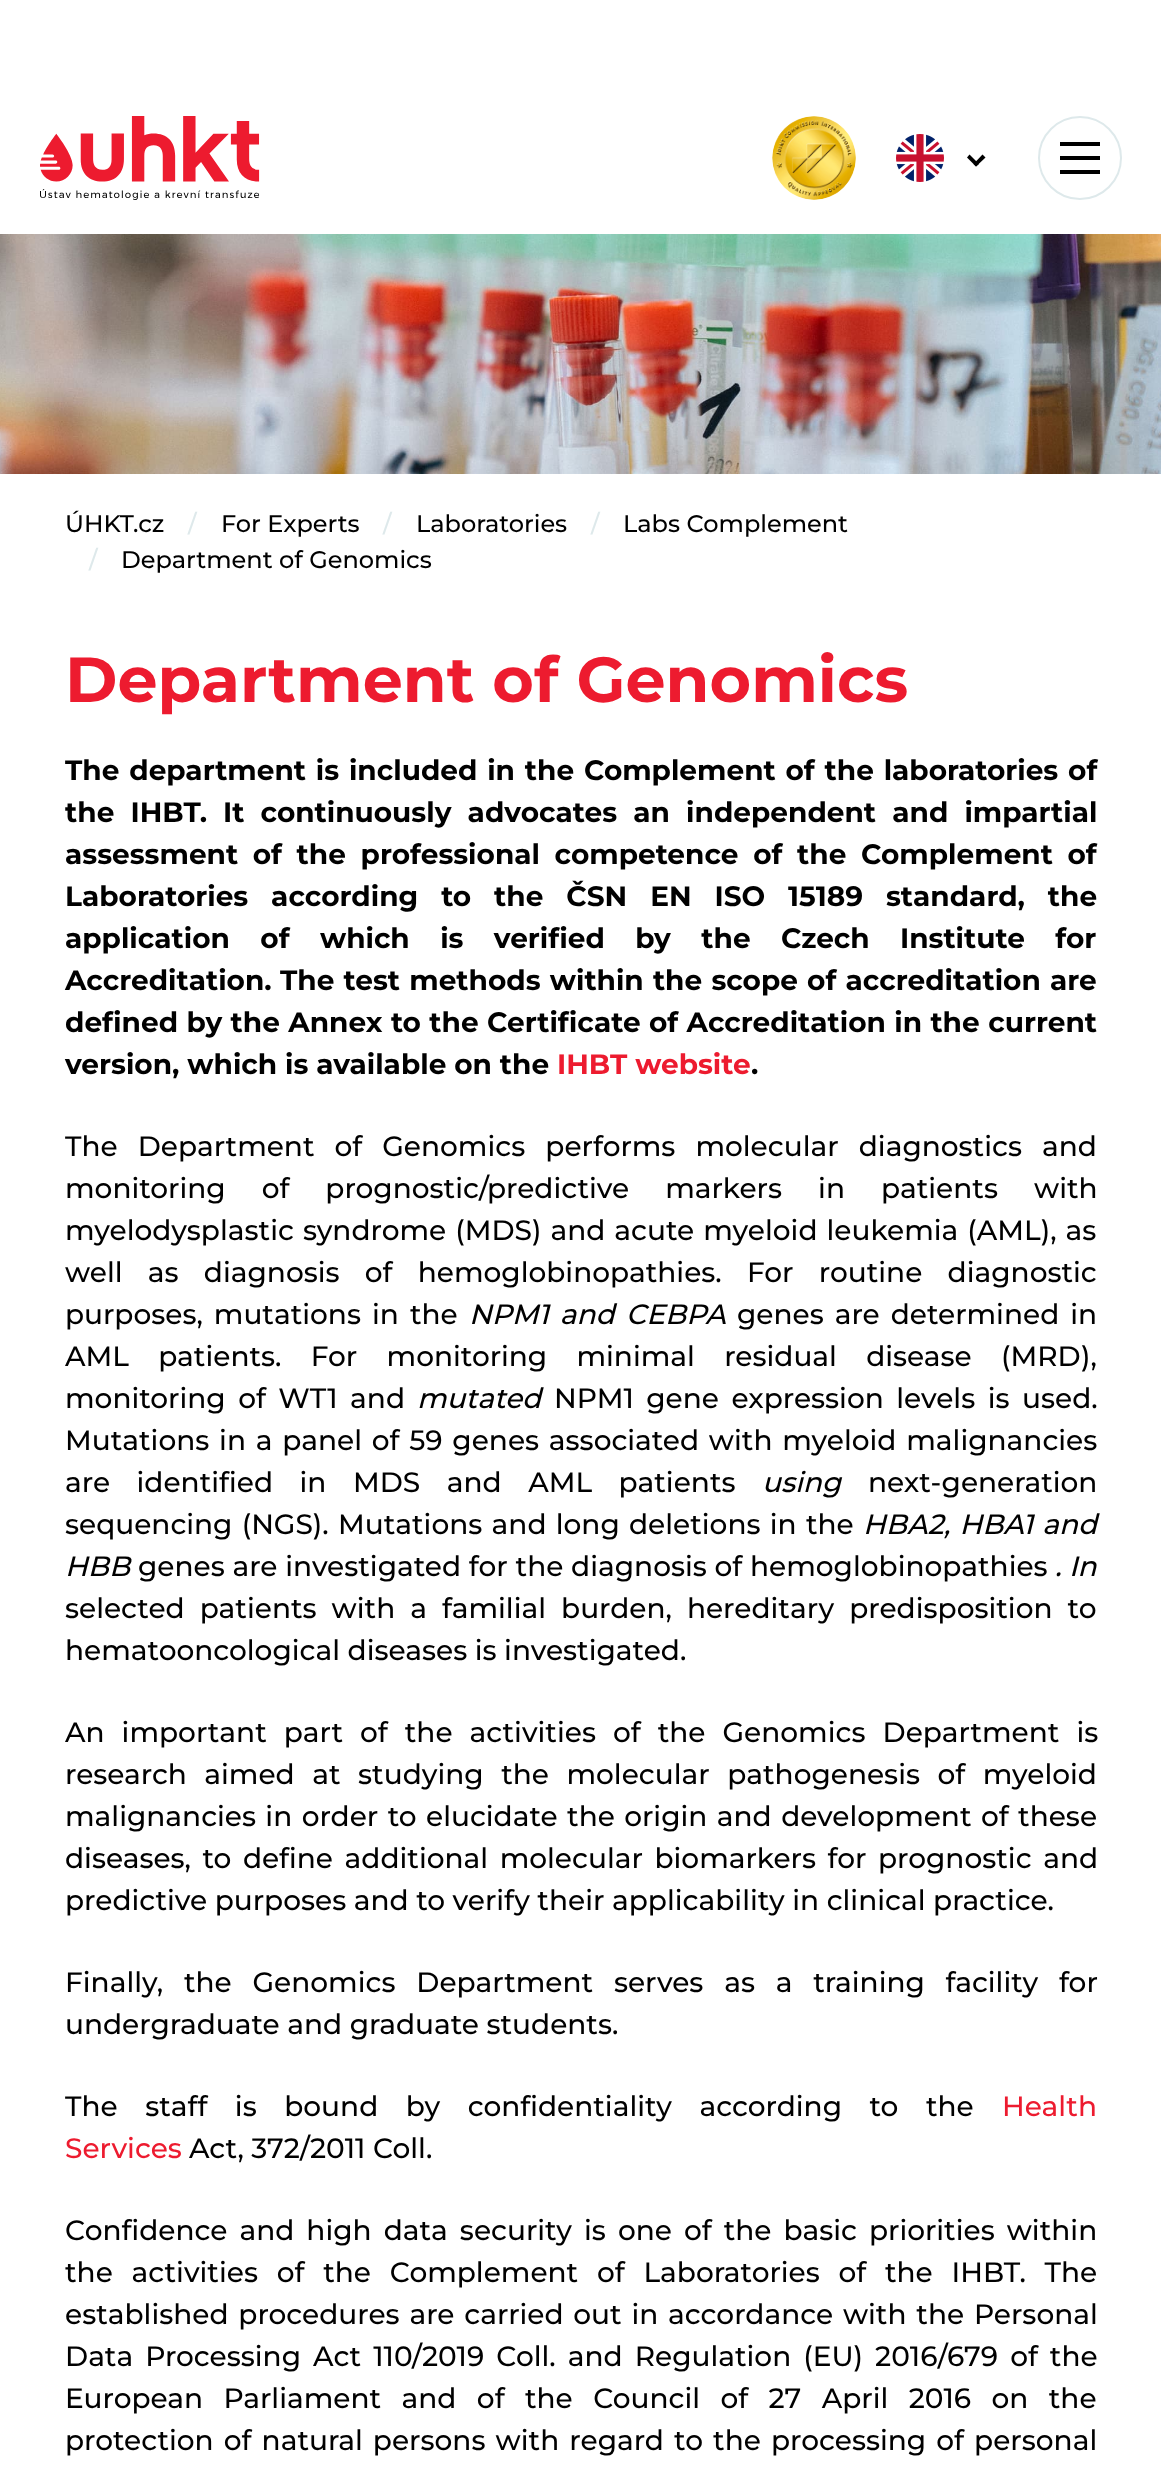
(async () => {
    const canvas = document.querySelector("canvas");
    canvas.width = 1161;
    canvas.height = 2481;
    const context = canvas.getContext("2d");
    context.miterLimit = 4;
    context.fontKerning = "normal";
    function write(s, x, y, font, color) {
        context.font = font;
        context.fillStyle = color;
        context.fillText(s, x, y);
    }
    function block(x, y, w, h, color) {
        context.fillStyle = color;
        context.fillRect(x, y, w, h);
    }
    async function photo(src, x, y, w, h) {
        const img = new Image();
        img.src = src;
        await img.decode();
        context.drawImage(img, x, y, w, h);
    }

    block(0, 0, 1161, 2481, "rgb(255, 255, 255)");
    await photo("media/1.png", 40, 116, 220, 84);
    await photo("media/2.png", 772, 116, 84, 84);
    await photo("media/3.png", 896, 134, 48, 48);
    context.fillStyle = "rgb(0, 0, 0)";
    context.beginPath();
    context.moveTo(982.5, 154.5);
    context.lineTo(985.5, 157.5);
    context.lineTo(976, 166.5);
    context.lineTo(973.5, 164);
    context.closePath();
    context.fill();
    context.beginPath();
    context.moveTo(969.5, 154.5);
    context.lineTo(979, 164);
    context.lineTo(976, 166.5);
    context.lineTo(967, 157.5);
    context.closePath();
    context.fill();
    context.beginPath();
    context.arc(1080, 158, 41, 0, Math.PI * 2);
    context.strokeStyle = "rgb(222, 233, 235)";
    context.lineWidth = 2;
    context.stroke();
    block(1060, 142, 40, 4, "rgb(0, 0, 0)");
    block(1060, 156, 40, 4, "rgb(0, 0, 0)");
    block(1060, 170, 40, 4, "rgb(0, 0, 0)");
    await photo("media/4.png", 0, 234, 1161, 240);
    write("ÚHKT.cz", 65, 532, "100 24px Montserrat", "rgb(0, 0, 0)");
    write("/", 188, 532, "100 24px Montserrat", "rgb(222, 233, 235)");
    write("For Experts", 221, 532, "100 24px Montserrat", "rgb(0, 0, 0)");
    write("/", 383, 532, "100 24px Montserrat", "rgb(222, 233, 235)");
    write("Laboratories", 416, 532, "100 24px Montserrat", "rgb(0, 0, 0)");
    write("/", 591, 532, "100 24px Montserrat", "rgb(222, 233, 235)");
    write("Labs Complement", 623, 532, "100 24px Montserrat", "rgb(0, 0, 0)");
    write("/", 89, 568, "100 24px Montserrat", "rgb(222, 233, 235)");
    write("Department of Genomics", 121, 568, "100 24px Montserrat", "rgb(0, 0, 0)");
    write("Department of Genomics", 65, 702, "100 63.5px 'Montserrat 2'", "rgb(237, 27, 47)");
    context.wordSpacing = "1.9px";
    write("The department is included in the Complement of the laboratories of", 65, 780, "100 28px 'Montserrat 2'", "rgb(0, 0, 0)");
    context.wordSpacing = "8.25px";
    write("the IHBT.", 65, 822, "100 28px 'Montserrat 2'", "rgb(0, 0, 0)");
    write("It continuously advocates an independent and impartial", 223, 822, "100 28px 'Montserrat 2'", "rgb(0, 0, 0)");
    context.wordSpacing = "6.75px";
    write("assessment of the professional competence of the Complement of", 65, 864, "100 28px 'Montserrat 2'", "rgb(0, 0, 0)");
    context.wordSpacing = "15px";
    write("Laboratories according to the ČSN EN ISO 15189 standard, the", 65, 906, "100 28px 'Montserrat 2'", "rgb(0, 0, 0)");
    context.wordSpacing = "22.5px";
    write("application of which is verified by the Czech Institute for", 65, 948, "100 28px 'Montserrat 2'", "rgb(0, 0, 0)");
    context.wordSpacing = "0px";
    write("Accreditation.", 65, 990, "100 28px 'Montserrat 2'", "rgb(0, 0, 0)");
    context.wordSpacing = "1.25px";
    write("The test methods within the scope of accreditation are", 280, 990, "100 28px 'Montserrat 2'", "rgb(0, 0, 0)");
    context.wordSpacing = "0.5px";
    write("defined by the Annex to the Certificate of Accreditation in the current", 65, 1032, "100 28px 'Montserrat 2'", "rgb(0, 0, 0)");
    context.wordSpacing = "0px";
    write("version, which is available on the", 65, 1074, "100 28px 'Montserrat 2'", "rgb(0, 0, 0)");
    write("IHBT website", 557, 1074, "100 28px 'Montserrat 2'", "rgb(237, 27, 47)");
    write(".", 751, 1074, "100 28px 'Montserrat 2'", "rgb(0, 0, 0)");
    context.wordSpacing = "12.5px";
    write("The Department of Genomics performs molecular diagnostics and", 65, 1156, "100 28px Montserrat", "rgb(0, 0, 0)");
    context.wordSpacing = "28.5px";
    write("monitoring of prognostic/predictive markers in patients with", 65, 1198, "100 28px Montserrat", "rgb(0, 0, 0)");
    context.wordSpacing = "1.5px";
    write("myelodysplastic syndrome (MDS) and acute myeloid leukemia (AML), as", 65, 1240, "100 28px Montserrat", "rgb(0, 0, 0)");
    context.wordSpacing = "17.75px";
    write("well as diagnosis of hemoglobinopathies. For routine diagnostic", 65, 1282, "100 28px Montserrat", "rgb(0, 0, 0)");
    context.wordSpacing = "3.5px";
    write("purposes, mutations in the", 65, 1324, "100 28px Montserrat", "rgb(0, 0, 0)");
    write("NPM1 and", 469, 1324, "italic 100 28px Montserrat", "rgb(0, 0, 0)");
    context.wordSpacing = "0px";
    write("CEBPA", 626, 1324, "italic 100 28px Montserrat", "rgb(0, 0, 0)");
    context.wordSpacing = "3.5px";
    write("genes are determined in", 737, 1324, "100 28px Montserrat", "rgb(0, 0, 0)");
    context.wordSpacing = "21.75px";
    write("AML patients. For monitoring minimal residual disease (MRD),", 65, 1366, "100 28px Montserrat", "rgb(0, 0, 0)");
    context.wordSpacing = "5px";
    write("monitoring of WT1 and", 65, 1408, "100 28px Montserrat", "rgb(0, 0, 0)");
    context.wordSpacing = "0px";
    write("mutated", 417, 1408, "italic 100 28px Montserrat", "rgb(0, 0, 0)");
    context.wordSpacing = "5px";
    write("NPM1 gene expression levels is used.", 554, 1408, "100 28px Montserrat", "rgb(0, 0, 0)");
    context.wordSpacing = "2.25px";
    write("Mutations in a panel of 59 genes associated with myeloid malignancies", 65, 1450, "100 28px Montserrat", "rgb(0, 0, 0)");
    context.wordSpacing = "19px";
    write("are identified in MDS and AML patients", 65, 1492, "100 28px Montserrat", "rgb(0, 0, 0)");
    context.wordSpacing = "0px";
    write("using", 762, 1492, "italic 100 28px Montserrat", "rgb(0, 0, 0)");
    write("next-generation", 868, 1492, "100 28px Montserrat", "rgb(0, 0, 0)");
    context.wordSpacing = "1.75px";
    write("sequencing (NGS). Mutations and long deletions in the", 65, 1534, "100 28px Montserrat", "rgb(0, 0, 0)");
    write("HBA2, HBA1 and", 863, 1534, "italic 100 28px Montserrat", "rgb(0, 0, 0)");
    context.wordSpacing = "0px";
    write("HBB", 65, 1576, "italic 100 28px Montserrat", "rgb(0, 0, 0)");
    context.wordSpacing = "0.25px";
    write("genes are investigated for the diagnosis of hemoglobinopathies", 138, 1576, "100 28px Montserrat", "rgb(0, 0, 0)");
    context.wordSpacing = "0px";
    write(". In", 1055, 1576, "italic 100 28px Montserrat", "rgb(0, 0, 0)");
    context.wordSpacing = "7.5px";
    write("selected patients with a familial burden, hereditary predisposition to", 65, 1618, "100 28px Montserrat", "rgb(0, 0, 0)");
    context.wordSpacing = "0px";
    write("hematooncological diseases is investigated.", 65, 1660, "100 28px Montserrat", "rgb(0, 0, 0)");
    context.wordSpacing = "9.5px";
    write("An important part of the activities of the Genomics Department is", 65, 1742, "100 28px Montserrat", "rgb(0, 0, 0)");
    context.wordSpacing = "10px";
    write("research aimed at studying the molecular pathogenesis of myeloid", 65, 1784, "100 28px Montserrat", "rgb(0, 0, 0)");
    context.wordSpacing = "1.9px";
    write("malignancies in order to elucidate the origin and development of these", 65, 1826, "100 28px Montserrat", "rgb(0, 0, 0)");
    context.wordSpacing = "4px";
    write("diseases, to define additional molecular biomarkers for prognostic and", 65, 1868, "100 28px Montserrat", "rgb(0, 0, 0)");
    context.wordSpacing = "0px";
    write("predictive purposes and to verify their applicability in clinical practice.", 65, 1910, "100 28px Montserrat", "rgb(0, 0, 0)");
    context.wordSpacing = "13.25px";
    write("Finally, the Genomics Department serves as a training facility for", 65, 1992, "100 28px Montserrat", "rgb(0, 0, 0)");
    context.wordSpacing = "0px";
    write("undergraduate and graduate students.", 65, 2034, "100 28px Montserrat", "rgb(0, 0, 0)");
    context.wordSpacing = "20px";
    write("The staff is bound by confidentiality according to the", 65, 2116, "100 28px Montserrat", "rgb(0, 0, 0)");
    context.wordSpacing = "0px";
    write("Health", 1002, 2116, "100 28px Montserrat", "rgb(237, 27, 47)");
    write("Services", 65, 2158, "100 28px Montserrat", "rgb(237, 27, 47)");
    write("Act, 372/2011 Coll.", 189, 2158, "100 28px Montserrat", "rgb(0, 0, 0)");
    context.wordSpacing = "4.5px";
    write("Confidence and high data security is one of the basic priorities within", 65, 2240, "100 28px Montserrat", "rgb(0, 0, 0)");
    context.wordSpacing = "11.25px";
    write("the activities of the Complement of Laboratories of the IHBT. The", 65, 2282, "100 28px Montserrat", "rgb(0, 0, 0)");
    context.wordSpacing = "2.25px";
    write("established procedures are carried out in accordance with the Personal", 65, 2324, "100 28px Montserrat", "rgb(0, 0, 0)");
    context.wordSpacing = "4.5px";
    write("Data Processing Act 110/2019 Coll. and Regulation (EU) 2016/679 of the", 65, 2366, "100 28px Montserrat", "rgb(0, 0, 0)");
    context.wordSpacing = "12.9px";
    write("European Parliament and of the Council of 27 April 2016 on the", 65, 2408, "100 28px Montserrat", "rgb(0, 0, 0)");
    context.wordSpacing = "2.6px";
    write("protection of natural persons with regard to the processing of personal", 65, 2450, "100 28px Montserrat", "rgb(0, 0, 0)");
})();
